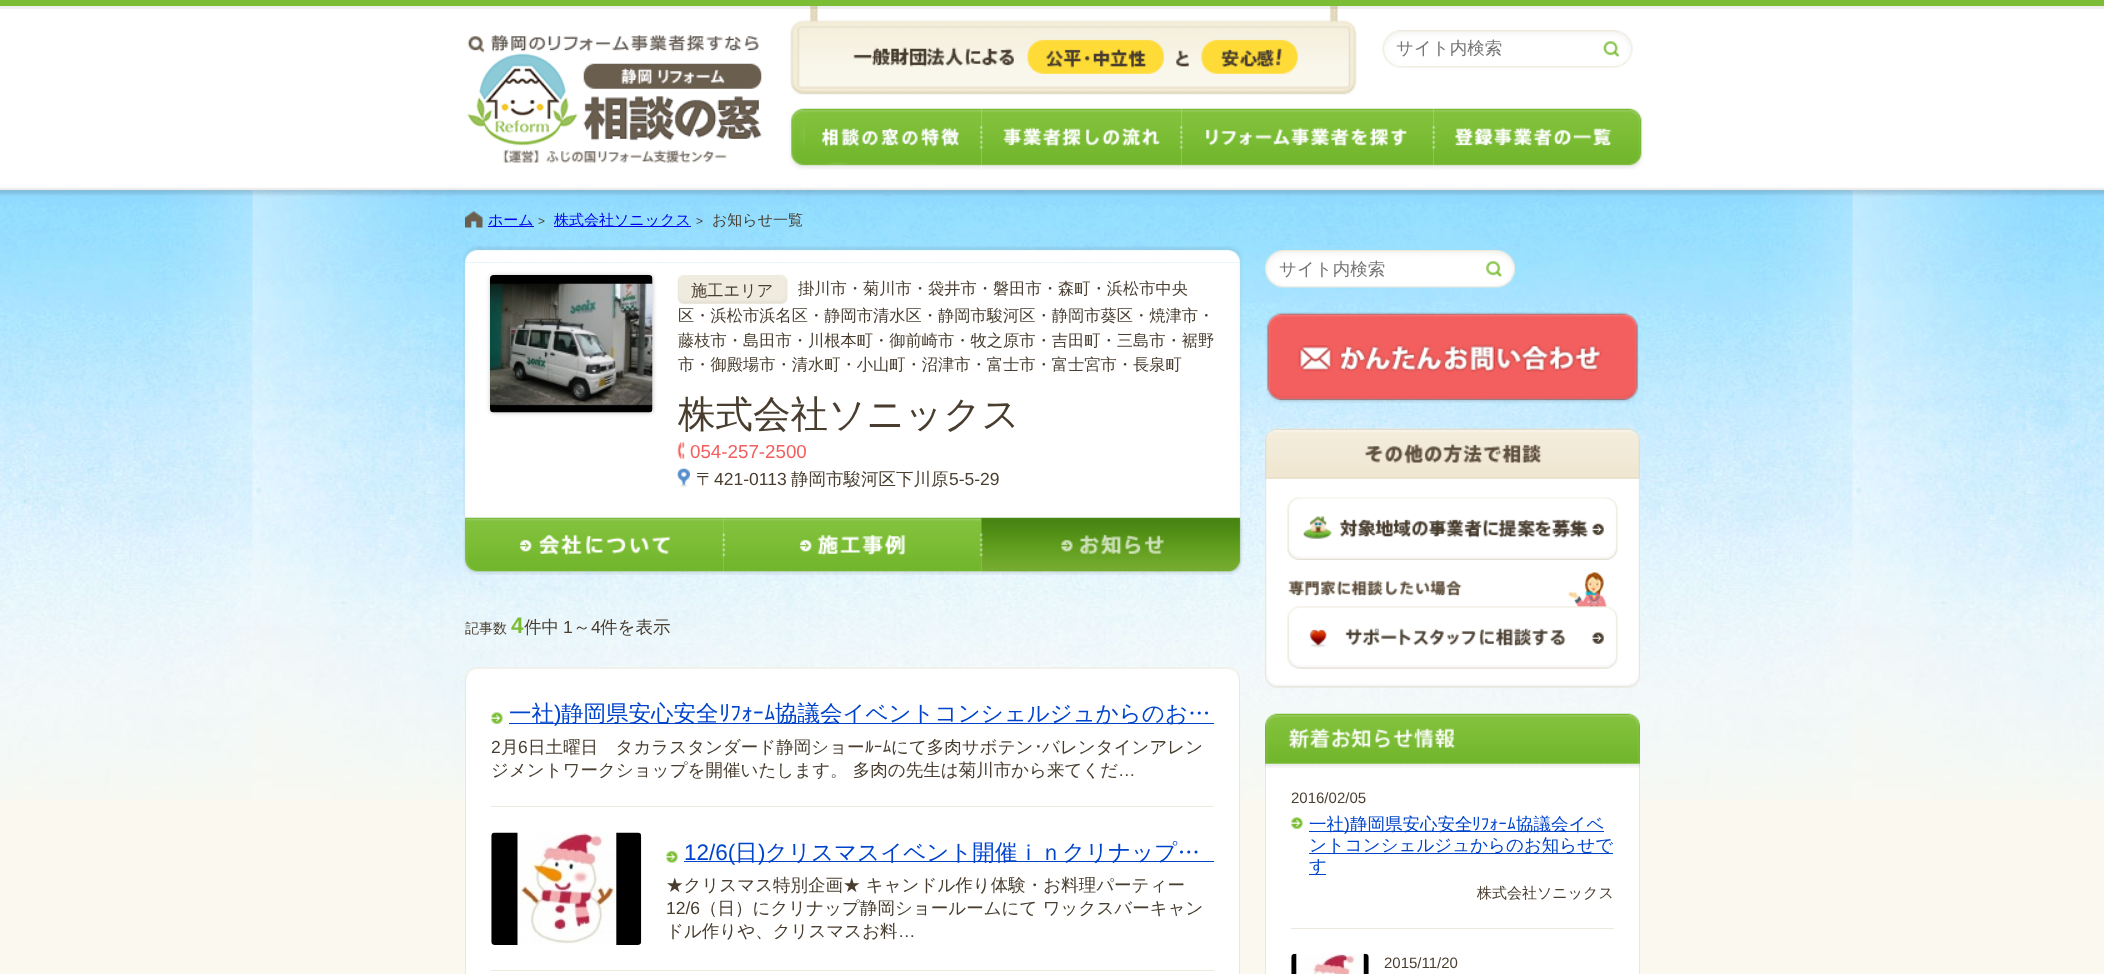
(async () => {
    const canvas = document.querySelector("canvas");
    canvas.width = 2104;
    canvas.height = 974;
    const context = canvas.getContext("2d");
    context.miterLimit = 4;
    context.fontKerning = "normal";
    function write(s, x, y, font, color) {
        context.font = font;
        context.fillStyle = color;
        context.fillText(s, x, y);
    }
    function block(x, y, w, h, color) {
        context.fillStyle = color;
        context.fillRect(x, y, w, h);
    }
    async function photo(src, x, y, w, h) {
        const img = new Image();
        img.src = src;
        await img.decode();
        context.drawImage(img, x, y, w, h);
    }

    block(0, 0, 2104, 974, "rgb(250, 248, 239)");
    await photo("media/1.png", 0, 190, 2104, 610);
    block(0, 6, 2104, 184, "rgb(255, 255, 255)");
    await photo("media/3.png", 790, 6, 567, 89);
    block(0, 6, 2104, 3, "rgba(0, 0, 0, 0.06)");
    block(0, 0, 2104, 6, "rgb(123, 189, 52)");
    await photo("media/2.png", 467, 35, 295, 128);
    await photo("media/4.png", 1382, 30, 251, 38);
    write("サイト内検索", 1396, 54, "500 17.5px WenQuanYi Zen Hei", "rgb(117, 117, 117)");
    await photo("media/5.png", 789, 108, 193, 62);
    await photo("media/6.png", 981, 108, 201, 62);
    await photo("media/7.png", 1181, 108, 253, 62);
    await photo("media/8.png", 1433, 108, 211, 62);
    await photo("media/9.png", 0, 187, 2104, 8);
    await photo("media/10.png", 465, 211, 18, 17);
    block(488, 226, 46, 1, "rgb(0, 0, 238)");
    write("ホーム", 488, 225, "500 15px WenQuanYi Zen Hei", "rgb(0, 0, 238)");
    write(">", 538, 225, "12px Liberation Sans", "rgb(72, 61, 47)");
    block(554, 226, 137, 1, "rgb(0, 0, 238)");
    write("株式会社ソニックス", 554, 225, "500 15px WenQuanYi Zen Hei", "rgb(0, 0, 238)");
    write(">", 696, 225, "12px Liberation Sans", "rgb(72, 61, 47)");
    write("お知らせ一覧", 712, 225, "500 15px WenQuanYi Zen Hei", "rgb(72, 61, 47)");
    await photo("media/17.png", 463, 517, 261, 58);
    await photo("media/18.png", 723, 517, 259, 58);
    await photo("media/19.png", 981, 517, 262, 58);
    await photo("media/12.png", 463, 262, 779, 256);
    await photo("media/11.png", 463, 246, 779, 17);
    context.fillStyle = "rgba(0, 0, 0, 0.2)";
    context.filter = "blur(2px)";
    context.beginPath();
    context.roundRect(490, 275, 163, 138, 4);
    context.fill();
    context.filter = "none";
    await photo("media/13.png", 490, 275, 163, 138);
    await photo("media/14.png", 677, 275, 111, 29);
    write("施工エリア", 691, 296, "500 16.25px WenQuanYi Zen Hei", "rgb(72, 61, 47)");
    write("掛川市・菊川市・袋井市・磐田市・森町・浜松市中央", 798, 294, "500 16.25px WenQuanYi Zen Hei", "rgb(72, 61, 47)");
    write("区・浜松市浜名区・静岡市清水区・静岡市駿河区・静岡市葵区・焼津市・", 678, 321, "500 16.25px WenQuanYi Zen Hei", "rgb(72, 61, 47)");
    write("藤枝市・島田市・川根本町・御前崎市・牧之原市・吉田町・三島市・裾野", 678, 346, "500 16.25px WenQuanYi Zen Hei", "rgb(72, 61, 47)");
    write("市・御殿場市・清水町・小山町・沼津市・富士市・富士宮市・長泉町", 678, 370, "500 16.25px WenQuanYi Zen Hei", "rgb(72, 61, 47)");
    write("株式会社ソニックス", 678, 427, "500 37.5px WenQuanYi Zen Hei", "rgb(72, 61, 47)");
    await photo("media/15.png", 677, 442, 8, 17);
    write("054-257-2500", 690, 458, "18.75px Liberation Sans", "rgb(243, 95, 95)");
    await photo("media/16.png", 677, 468, 13, 20);
    write("〒", 696, 485, "500 17.5px WenQuanYi Zen Hei", "rgb(72, 61, 47)");
    write("421-0113", 714, 485, "17.5px Liberation Sans", "rgb(72, 61, 47)");
    write("静岡市駿河区下川原", 791, 485, "500 17.5px WenQuanYi Zen Hei", "rgb(72, 61, 47)");
    write("5-5-29", 949, 485, "17.5px Liberation Sans", "rgb(72, 61, 47)");
    write("記事数", 465, 633, "500 14px WenQuanYi Zen Hei", "rgb(72, 61, 47)");
    write("4", 511, 633, "bold 22.5px Liberation Sans", "rgb(123, 189, 52)");
    write("件中", 524, 633, "500 17.5px WenQuanYi Zen Hei", "rgb(72, 61, 47)");
    write("1", 563, 633, "17.5px Liberation Sans", "rgb(72, 61, 47)");
    write("～", 573, 633, "500 17.5px WenQuanYi Zen Hei", "rgb(72, 61, 47)");
    write("4", 591, 633, "17.5px Liberation Sans", "rgb(72, 61, 47)");
    write("件を表示", 600, 633, "500 17.5px WenQuanYi Zen Hei", "rgb(72, 61, 47)");
    await photo("media/20.png", 465, 667, 775, 13);
    block(466, 680, 773, 294, "rgb(255, 255, 255)");
    block(1239, 680, 1, 294, "rgb(235, 232, 218)");
    block(465, 680, 1, 294, "rgb(235, 232, 218)");
    await photo("media/21.png", 491, 712, 12, 12);
    block(509, 723, 705, 1, "rgb(0, 68, 204)");
    write("一社", 509, 721, "500 22.5px WenQuanYi Zen Hei", "rgb(0, 68, 204)");
    write(")", 554, 721, "22.5px Liberation Sans", "rgb(0, 68, 204)");
    write("静岡県安心安全", 561, 721, "500 22.5px WenQuanYi Zen Hei", "rgb(0, 68, 204)");
    write("ﾘﾌｫｰﾑ", 719, 721, "22.5px IPAPGothic", "rgb(0, 68, 204)");
    write("協議会イベントコンシェルジュからのお…", 775, 721, "500 22.5px WenQuanYi Zen Hei", "rgb(0, 68, 204)");
    write("2", 491, 753, "17.5px Liberation Sans", "rgb(72, 61, 47)");
    write("月", 501, 753, "500 17.5px WenQuanYi Zen Hei", "rgb(72, 61, 47)");
    write("6", 518, 753, "17.5px Liberation Sans", "rgb(72, 61, 47)");
    write("日土曜日　タカラスタンダード静岡ショー", 528, 753, "500 17.5px WenQuanYi Zen Hei", "rgb(72, 61, 47)");
    write("ﾙｰﾑ", 865, 753, "17.5px IPAPGothic", "rgb(72, 61, 47)");
    write("にて多肉サボテン", 891, 753, "500 17.5px WenQuanYi Zen Hei", "rgb(72, 61, 47)");
    write("･", 1034, 753, "17.5px IPAPGothic", "rgb(72, 61, 47)");
    write("バレンタインアレン", 1042, 753, "500 17.5px WenQuanYi Zen Hei", "rgb(72, 61, 47)");
    write("ジメントワークショップを開催いたします。 多肉の先生は菊川市から来てくだ", 491, 776, "500 17.5px WenQuanYi Zen Hei", "rgb(72, 61, 47)");
    write("…", 1118, 776, "17.5px Liberation Sans", "rgb(72, 61, 47)");
    block(491, 806, 723, 1, "rgb(237, 234, 220)");
    await photo("media/22.png", 491, 832, 151, 113);
    await photo("media/23.png", 666, 851, 12, 12);
    block(684, 861, 530, 1, "rgb(0, 68, 204)");
    write("12/6(", 684, 860, "22.5px Liberation Sans", "rgb(0, 68, 204)");
    write("日", 735, 860, "500 22.5px WenQuanYi Zen Hei", "rgb(0, 68, 204)");
    write(")", 758, 860, "22.5px Liberation Sans", "rgb(0, 68, 204)");
    write("クリスマスイベント開催ｉｎクリナップ…", 765, 860, "500 22.5px WenQuanYi Zen Hei", "rgb(0, 68, 204)");
    write("★クリスマス特別企画★ キャンドル作り体験・お料理パーティー", 666, 891, "500 17.5px WenQuanYi Zen Hei", "rgb(72, 61, 47)");
    write("12/6", 666, 914, "17.5px Liberation Sans", "rgb(72, 61, 47)");
    write("（日）にクリナップ静岡ショールームにて ワックスバーキャン", 700, 914, "500 17.5px WenQuanYi Zen Hei", "rgb(72, 61, 47)");
    write("ドル作りや、クリスマスお料", 666, 937, "500 17.5px WenQuanYi Zen Hei", "rgb(72, 61, 47)");
    write("…", 898, 937, "17.5px Liberation Sans", "rgb(72, 61, 47)");
    block(491, 970, 723, 1, "rgb(237, 234, 220)");
    await photo("media/24.png", 1265, 250, 250, 38);
    write("サイト内検索", 1279, 275, "500 17.5px WenQuanYi Zen Hei", "rgb(117, 117, 117)");
    await photo("media/25.png", 1266, 312, 373, 91);
    await photo("media/26.png", 1265, 428, 375, 260);
    await photo("media/27.png", 1287, 497, 331, 63);
    await photo("media/28.png", 1287, 572, 331, 97);
    await photo("media/29.png", 1265, 713, 375, 51);
    block(1266, 764, 373, 210, "rgb(255, 255, 255)");
    block(1639, 764, 1, 210, "rgb(235, 232, 218)");
    block(1265, 764, 1, 210, "rgb(235, 232, 218)");
    await photo("media/30.png", 1265, 764, 375, 4);
    write("2016/02/05", 1291, 803, "15px Liberation Sans", "rgb(72, 61, 47)");
    await photo("media/21.png", 1291, 817, 12, 12);
    block(1309, 831, 295, 1, "rgb(0, 68, 204)");
    write("一社", 1309, 830, "500 17.5px WenQuanYi Zen Hei", "rgb(0, 68, 204)");
    write(")", 1344, 830, "17.5px Liberation Sans", "rgb(0, 68, 204)");
    write("静岡県安心安全", 1350, 830, "500 17.5px WenQuanYi Zen Hei", "rgb(0, 68, 204)");
    write("ﾘﾌｫｰﾑ", 1472, 830, "17.5px IPAPGothic", "rgb(0, 68, 204)");
    write("協議会イベ", 1516, 830, "500 17.5px WenQuanYi Zen Hei", "rgb(0, 68, 204)");
    block(1309, 853, 304, 1, "rgb(0, 68, 204)");
    write("ントコンシェルジュからのお知らせで", 1309, 851, "500 17.5px WenQuanYi Zen Hei", "rgb(0, 68, 204)");
    block(1309, 874, 17, 1, "rgb(0, 68, 204)");
    write("す", 1309, 872, "500 17.5px WenQuanYi Zen Hei", "rgb(0, 68, 204)");
    write("株式会社ソニックス", 1477, 898, "500 15px WenQuanYi Zen Hei", "rgb(72, 61, 47)");
    block(1291, 928, 323, 1, "rgb(237, 234, 220)");
    await photo("media/31.png", 1291, 953, 78, 21);
    write("2015/11/20", 1384, 968, "15px Liberation Sans", "rgb(72, 61, 47)");
})();
